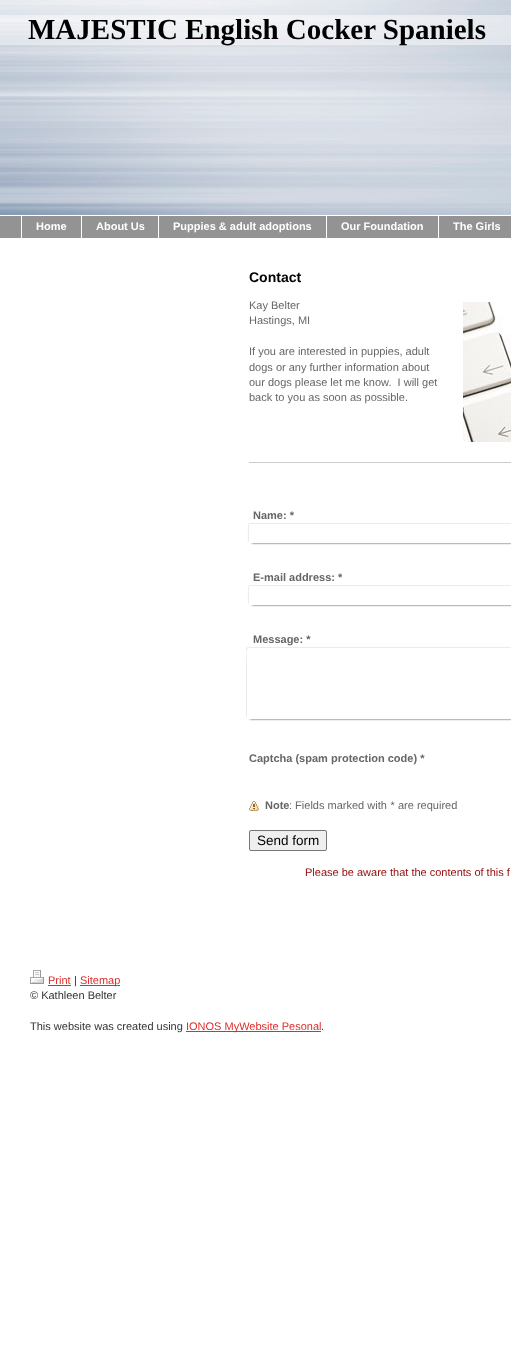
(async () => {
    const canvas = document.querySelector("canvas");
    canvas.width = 511;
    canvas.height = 1352;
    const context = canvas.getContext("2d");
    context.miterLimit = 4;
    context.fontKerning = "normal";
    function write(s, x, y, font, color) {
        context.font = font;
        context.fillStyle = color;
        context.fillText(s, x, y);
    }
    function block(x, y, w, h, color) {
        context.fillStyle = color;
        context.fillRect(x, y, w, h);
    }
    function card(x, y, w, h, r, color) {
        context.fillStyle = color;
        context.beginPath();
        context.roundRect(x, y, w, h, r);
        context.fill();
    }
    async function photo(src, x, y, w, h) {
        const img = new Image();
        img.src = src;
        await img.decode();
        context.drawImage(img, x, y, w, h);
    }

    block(0, 0, 511, 1352, "rgb(255, 255, 255)");
    await photo("media/1.png", 0, 0, 511, 215);
    block(0, 15, 511, 30, "rgba(255, 255, 255, 0.5)");
    write("MAJESTIC English Cocker Spaniels", 28, 39, "bold 29px Liberation Serif", "rgb(0, 0, 0)");
    block(0, 216, 21, 22, "rgb(147, 147, 147)");
    block(22, 216, 59, 22, "rgb(147, 147, 147)");
    write("Home", 36, 230, "bold 11px Liberation Sans", "rgb(255, 255, 255)");
    block(82, 216, 76, 22, "rgb(147, 147, 147)");
    write("About Us", 96, 230, "bold 11px Liberation Sans", "rgb(255, 255, 255)");
    block(159, 216, 167, 22, "rgb(147, 147, 147)");
    write("Puppies & adult adoptions", 173, 230, "bold 11px Liberation Sans", "rgb(255, 255, 255)");
    block(327, 216, 111, 22, "rgb(147, 147, 147)");
    write("Our Foundation", 341, 230, "bold 11px Liberation Sans", "rgb(255, 255, 255)");
    block(439, 216, 72, 22, "rgb(147, 147, 147)");
    write("The Girls", 453, 230, "bold 11px Liberation Sans", "rgb(255, 255, 255)");
    write("Contact", 249, 282, "bold 14px Liberation Sans", "rgb(0, 0, 0)");
    write("Kay Belter", 249, 309, "11px Liberation Sans", "rgb(102, 102, 102)");
    write("Hastings, MI", 249, 324, "11px Liberation Sans", "rgb(102, 102, 102)");
    write("If you are interested in puppies, adult", 249, 355, "11px Liberation Sans", "rgb(102, 102, 102)");
    write("dogs or any further information about", 249, 371, "11px Liberation Sans", "rgb(102, 102, 102)");
    write("our dogs please let me know.  I will get", 249, 386, "11px Liberation Sans", "rgb(102, 102, 102)");
    write("back to you as soon as possible.", 249, 401, "11px Liberation Sans", "rgb(102, 102, 102)");
    await photo("media/2.png", 463, 302, 48, 140);
    block(249, 462, 262, 1, "rgb(204, 204, 204)");
    write("Name: *", 253, 519, "bold 11px Liberation Sans", "rgb(102, 102, 102)");
    context.fillStyle = "rgb(235, 235, 235)";
    context.beginPath();
    context.moveTo(250, 523);
    context.bezierCurveTo(247, 523, 248, 531, 248, 532);
    context.bezierCurveTo(248, 534, 247, 541, 249, 542);
    context.lineTo(249, 534);
    context.bezierCurveTo(249, 532, 248, 524, 251, 524);
    context.lineTo(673, 524);
    context.lineTo(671, 523);
    context.closePath();
    context.fill();
    context.fillStyle = "rgba(0, 0, 0, 0.8)";
    context.filter = "blur(1px)";
    context.beginPath();
    context.rect(252, 528, 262, 15);
    context.fill();
    context.filter = "none";
    card(249, 524, 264, 19, 2, "rgb(255, 255, 255)");
    write("E-mail address: *", 253, 581, "bold 11px Liberation Sans", "rgb(102, 102, 102)");
    context.fillStyle = "rgb(235, 235, 235)";
    context.beginPath();
    context.moveTo(250, 585);
    context.bezierCurveTo(247, 585, 248, 593, 248, 594);
    context.bezierCurveTo(248, 596, 247, 603, 249, 604);
    context.lineTo(249, 596);
    context.bezierCurveTo(249, 594, 248, 586, 251, 586);
    context.lineTo(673, 586);
    context.lineTo(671, 585);
    context.closePath();
    context.fill();
    context.fillStyle = "rgba(0, 0, 0, 0.8)";
    context.filter = "blur(1px)";
    context.beginPath();
    context.rect(252, 590, 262, 15);
    context.fill();
    context.filter = "none";
    card(249, 586, 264, 19, 2, "rgb(255, 255, 255)");
    write("Message: *", 253, 643, "bold 11px Liberation Sans", "rgb(102, 102, 102)");
    context.fillStyle = "rgb(235, 235, 235)";
    context.beginPath();
    context.moveTo(248, 647);
    context.lineTo(246, 648);
    context.lineTo(246, 716);
    context.lineTo(247, 718);
    context.lineTo(247, 661);
    context.bezierCurveTo(247, 657, 245, 648, 249, 648);
    context.lineTo(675, 648);
    context.lineTo(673, 647);
    context.closePath();
    context.fill();
    context.fillStyle = "rgba(0, 0, 0, 0.8)";
    context.filter = "blur(1px)";
    context.beginPath();
    context.rect(250, 652, 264, 67);
    context.fill();
    context.filter = "none";
    card(247, 648, 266, 71, 2, "rgb(255, 255, 255)");
    write("Captcha (spam protection code) *", 249, 762, "bold 11px Liberation Sans", "rgb(102, 102, 102)");
    await photo("media/3.png", 249, 801, 10, 10);
    write("Note", 265, 809, "bold 11px Liberation Sans", "rgb(102, 102, 102)");
    write(": Fields marked with", 289, 809, "11px Liberation Sans", "rgb(102, 102, 102)");
    write("*", 390, 809, "italic 11px Liberation Sans", "rgb(102, 102, 102)");
    write("are required", 398, 809, "11px Liberation Sans", "rgb(102, 102, 102)");
    context.fillStyle = "rgb(239, 239, 239)";
    context.beginPath();
    context.roundRect(249.5, 830.5, 77, 20, 1.5);
    context.fill();
    context.strokeStyle = "rgb(118, 118, 118)";
    context.stroke();
    write("Send form", 257, 845, "13.5px Liberation Sans", "rgb(0, 0, 0)");
    write("Please be aware that the contents of this f", 305, 876, "11px Liberation Sans", "rgb(150, 10, 10)");
    await photo("media/4.png", 30, 970, 14, 14);
    write("Print", 48, 984, "11px Liberation Sans", "rgb(219, 47, 44)");
    block(48, 985, 23, 1, "rgb(219, 47, 44)");
    write("|", 74, 984, "11px Liberation Sans", "rgb(51, 51, 51)");
    block(80, 985, 40, 1, "rgb(219, 47, 44)");
    write("Sitemap", 80, 984, "11px Liberation Sans", "rgb(219, 47, 44)");
    write("© Kathleen Belter", 30, 999, "11px Liberation Sans", "rgb(51, 51, 51)");
    write("This website was created using", 30, 1030, "11px Liberation Sans", "rgb(51, 51, 51)");
    block(186, 1031, 135, 1, "rgb(219, 47, 44)");
    write("IONOS MyWebsite Pesonal", 186, 1030, "11px Liberation Sans", "rgb(219, 47, 44)");
    write(".", 321, 1030, "11px Liberation Sans", "rgb(51, 51, 51)");
})();
